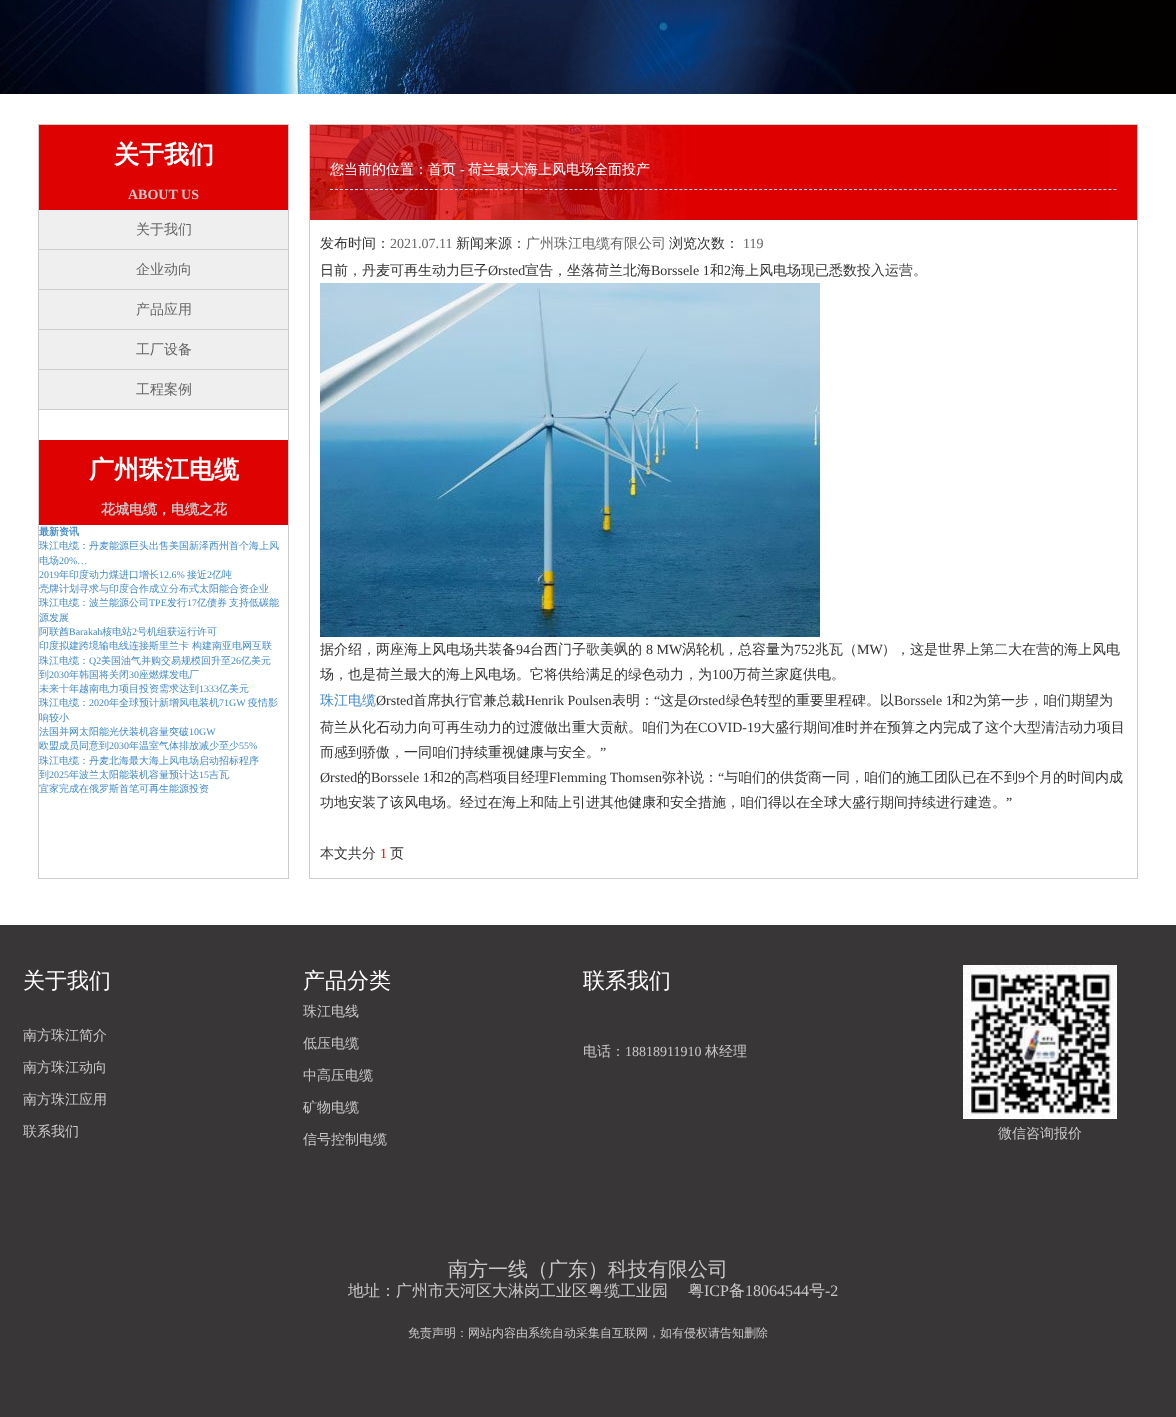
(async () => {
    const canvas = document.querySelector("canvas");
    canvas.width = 1176;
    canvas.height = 1417;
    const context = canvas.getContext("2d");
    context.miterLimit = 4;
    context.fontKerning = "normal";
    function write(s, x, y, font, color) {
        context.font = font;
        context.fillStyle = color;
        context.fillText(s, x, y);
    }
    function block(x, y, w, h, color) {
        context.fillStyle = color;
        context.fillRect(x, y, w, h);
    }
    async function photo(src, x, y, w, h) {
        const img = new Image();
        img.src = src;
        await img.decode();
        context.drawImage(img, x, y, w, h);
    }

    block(0, 0, 1176, 1417, "rgb(255, 255, 255)");
    await photo("media/1.png", 0, 0, 1176, 94);
    context.strokeStyle = "rgb(204, 204, 204)";
    context.strokeRect(38.5, 124.5, 250, 754);
    block(39, 125, 249, 85, "rgb(223, 2, 2)");
    write("关于我们", 114, 163, "bold 25px WenQuanYi Zen Hei", "rgb(255, 255, 255)");
    write("ABOUT US", 128, 199, "bold 14px Liberation Serif", "rgb(201, 200, 200)");
    block(39, 210, 249, 39, "rgb(239, 239, 239)");
    block(39, 249, 249, 1, "rgb(204, 204, 204)");
    write("关于我们", 136, 234, "500 14px WenQuanYi Zen Hei", "rgb(102, 102, 102)");
    block(39, 250, 249, 39, "rgb(239, 239, 239)");
    block(39, 289, 249, 1, "rgb(204, 204, 204)");
    write("企业动向", 136, 274, "500 14px WenQuanYi Zen Hei", "rgb(102, 102, 102)");
    block(39, 290, 249, 39, "rgb(239, 239, 239)");
    block(39, 329, 249, 1, "rgb(204, 204, 204)");
    write("产品应用", 136, 314, "500 14px WenQuanYi Zen Hei", "rgb(102, 102, 102)");
    block(39, 330, 249, 39, "rgb(239, 239, 239)");
    block(39, 369, 249, 1, "rgb(204, 204, 204)");
    write("工厂设备", 136, 354, "500 14px WenQuanYi Zen Hei", "rgb(102, 102, 102)");
    block(39, 370, 249, 39, "rgb(239, 239, 239)");
    block(39, 409, 249, 1, "rgb(204, 204, 204)");
    write("工程案例", 136, 394, "500 14px WenQuanYi Zen Hei", "rgb(102, 102, 102)");
    block(39, 440, 249, 85, "rgb(223, 2, 2)");
    write("广州珠江电缆", 89, 478, "bold 25px WenQuanYi Zen Hei", "rgb(255, 255, 255)");
    write("花城电缆，电缆之花", 101, 514, "bold 14px WenQuanYi Zen Hei", "rgb(201, 200, 200)");
    write("最新资讯", 39, 535, "bold 10px WenQuanYi Zen Hei", "rgb(66, 139, 202)");
    write("珠江电缆：丹麦能源巨头出售美国新泽西州首个海上风", 39, 549, "500 10px WenQuanYi Zen Hei", "rgb(66, 139, 202)");
    write("电场", 39, 564, "500 10px WenQuanYi Zen Hei", "rgb(66, 139, 202)");
    write("20%…", 59, 564, "10px Liberation Serif", "rgb(66, 139, 202)");
    write("2019", 39, 578, "10px Liberation Serif", "rgb(66, 139, 202)");
    write("年印度动力煤进口增长", 59, 578, "500 10px WenQuanYi Zen Hei", "rgb(66, 139, 202)");
    write("12.6%", 159, 578, "10px Liberation Serif", "rgb(66, 139, 202)");
    write("接近", 187, 578, "500 10px WenQuanYi Zen Hei", "rgb(66, 139, 202)");
    write("2", 207, 578, "10px Liberation Serif", "rgb(66, 139, 202)");
    write("亿吨", 212, 578, "500 10px WenQuanYi Zen Hei", "rgb(66, 139, 202)");
    write("壳牌计划寻求与印度合作成立分布式太阳能合资企业", 39, 592, "500 10px WenQuanYi Zen Hei", "rgb(66, 139, 202)");
    write("珠江电缆：波兰能源公司", 39, 606, "500 10px WenQuanYi Zen Hei", "rgb(66, 139, 202)");
    write("TPE", 149, 606, "10px Liberation Serif", "rgb(66, 139, 202)");
    write("发行", 167, 606, "500 10px WenQuanYi Zen Hei", "rgb(66, 139, 202)");
    write("17", 187, 606, "10px Liberation Serif", "rgb(66, 139, 202)");
    write("亿债券", 197, 606, "500 10px WenQuanYi Zen Hei", "rgb(66, 139, 202)");
    write("支持低碳能", 229, 606, "500 10px WenQuanYi Zen Hei", "rgb(66, 139, 202)");
    write("源发展", 39, 621, "500 10px WenQuanYi Zen Hei", "rgb(66, 139, 202)");
    write("阿联酋", 39, 635, "500 10px WenQuanYi Zen Hei", "rgb(66, 139, 202)");
    write("Barakah", 69, 635, "10px Liberation Serif", "rgb(66, 139, 202)");
    write("核电站", 102, 635, "500 10px WenQuanYi Zen Hei", "rgb(66, 139, 202)");
    write("2", 132, 635, "10px Liberation Serif", "rgb(66, 139, 202)");
    write("号机组获运行许可", 137, 635, "500 10px WenQuanYi Zen Hei", "rgb(66, 139, 202)");
    write("印度拟建跨境输电线连接斯里兰卡", 39, 649, "500 10px WenQuanYi Zen Hei", "rgb(66, 139, 202)");
    write("构建南亚电网互联", 192, 649, "500 10px WenQuanYi Zen Hei", "rgb(66, 139, 202)");
    write("珠江电缆：", 39, 664, "500 10px WenQuanYi Zen Hei", "rgb(66, 139, 202)");
    write("Q2", 89, 664, "10px Liberation Serif", "rgb(66, 139, 202)");
    write("美国油气并购交易规模回升至", 101, 664, "500 10px WenQuanYi Zen Hei", "rgb(66, 139, 202)");
    write("26", 231, 664, "10px Liberation Serif", "rgb(66, 139, 202)");
    write("亿美元", 241, 664, "500 10px WenQuanYi Zen Hei", "rgb(66, 139, 202)");
    write("到", 39, 678, "500 10px WenQuanYi Zen Hei", "rgb(66, 139, 202)");
    write("2030", 49, 678, "10px Liberation Serif", "rgb(66, 139, 202)");
    write("年韩国将关闭", 69, 678, "500 10px WenQuanYi Zen Hei", "rgb(66, 139, 202)");
    write("30", 129, 678, "10px Liberation Serif", "rgb(66, 139, 202)");
    write("座燃煤发电厂", 139, 678, "500 10px WenQuanYi Zen Hei", "rgb(66, 139, 202)");
    write("未来十年越南电力项目投资需求达到", 39, 692, "500 10px WenQuanYi Zen Hei", "rgb(66, 139, 202)");
    write("1333", 199, 692, "10px Liberation Serif", "rgb(66, 139, 202)");
    write("亿美元", 219, 692, "500 10px WenQuanYi Zen Hei", "rgb(66, 139, 202)");
    write("珠江电缆：", 39, 706, "500 10px WenQuanYi Zen Hei", "rgb(66, 139, 202)");
    write("2020", 89, 706, "10px Liberation Serif", "rgb(66, 139, 202)");
    write("年全球预计新增风电装机", 109, 706, "500 10px WenQuanYi Zen Hei", "rgb(66, 139, 202)");
    write("71GW", 219, 706, "10px Liberation Serif", "rgb(66, 139, 202)");
    write("疫情影", 248, 706, "500 10px WenQuanYi Zen Hei", "rgb(66, 139, 202)");
    write("响较小", 39, 721, "500 10px WenQuanYi Zen Hei", "rgb(66, 139, 202)");
    write("法国并网太阳能光伏装机容量突破", 39, 735, "500 10px WenQuanYi Zen Hei", "rgb(66, 139, 202)");
    write("10GW", 189, 735, "10px Liberation Serif", "rgb(66, 139, 202)");
    write("欧盟成员同意到", 39, 749, "500 10px WenQuanYi Zen Hei", "rgb(66, 139, 202)");
    write("2030", 109, 749, "10px Liberation Serif", "rgb(66, 139, 202)");
    write("年温室气体排放减少至少", 129, 749, "500 10px WenQuanYi Zen Hei", "rgb(66, 139, 202)");
    write("55%", 239, 749, "10px Liberation Serif", "rgb(66, 139, 202)");
    write("珠江电缆：丹麦北海最大海上风电场启动招标程序", 39, 764, "500 10px WenQuanYi Zen Hei", "rgb(66, 139, 202)");
    write("到", 39, 778, "500 10px WenQuanYi Zen Hei", "rgb(66, 139, 202)");
    write("2025", 49, 778, "10px Liberation Serif", "rgb(66, 139, 202)");
    write("年波兰太阳能装机容量预计达", 69, 778, "500 10px WenQuanYi Zen Hei", "rgb(66, 139, 202)");
    write("15", 199, 778, "10px Liberation Serif", "rgb(66, 139, 202)");
    write("吉瓦", 209, 778, "500 10px WenQuanYi Zen Hei", "rgb(66, 139, 202)");
    write("宜家完成在俄罗斯首笔可再生能源投资", 39, 792, "500 10px WenQuanYi Zen Hei", "rgb(66, 139, 202)");
    context.strokeRect(309.5, 124.5, 828, 754);
    await photo("media/2.png", 310, 125, 827, 95);
    context.beginPath();
    context.moveTo(330, 189.5);
    context.lineTo(1117, 189.5);
    context.strokeStyle = "rgb(191, 226, 249)";
    context.setLineDash([3, 1.99]);
    context.stroke();
    write("您当前的位置：首页", 330, 174, "500 14px WenQuanYi Zen Hei", "rgb(255, 255, 255)");
    write("-", 460, 174, "14px Liberation Serif", "rgb(255, 255, 255)");
    write("荷兰最大海上风电场全面投产", 468, 174, "500 14px WenQuanYi Zen Hei", "rgb(255, 255, 255)");
    write("发布时间：", 320, 248, "500 14px WenQuanYi Zen Hei", "rgb(51, 51, 51)");
    write("2021.07.11", 390, 248, "14px Liberation Serif", "rgb(102, 102, 102)");
    write("新闻来源：", 456, 248, "500 14px WenQuanYi Zen Hei", "rgb(51, 51, 51)");
    write("广州珠江电缆有限公司", 526, 248, "500 14px WenQuanYi Zen Hei", "rgb(102, 102, 102)");
    write("浏览次数：", 669, 248, "500 14px WenQuanYi Zen Hei", "rgb(51, 51, 51)");
    write("119", 743, 248, "14px Liberation Serif", "rgb(102, 102, 102)");
    write("日前，丹麦可再生动力巨子", 320, 275, "500 14px WenQuanYi Zen Hei", "rgb(51, 51, 51)");
    write("Ørsted", 488, 275, "14px Liberation Serif", "rgb(51, 51, 51)");
    write("宣告，坐落荷兰北海", 525, 275, "500 14px WenQuanYi Zen Hei", "rgb(51, 51, 51)");
    write("Borssele 1", 651, 275, "14px Liberation Serif", "rgb(51, 51, 51)");
    write("和", 710, 275, "500 14px WenQuanYi Zen Hei", "rgb(51, 51, 51)");
    write("2", 724, 275, "14px Liberation Serif", "rgb(51, 51, 51)");
    write("海上风电场现已悉数投入运营。", 731, 275, "500 14px WenQuanYi Zen Hei", "rgb(51, 51, 51)");
    await photo("media/3.png", 320, 283, 500, 354);
    write("据介绍，两座海上风电场共装备", 320, 654, "500 14px WenQuanYi Zen Hei", "rgb(51, 51, 51)");
    write("94", 516, 654, "14px Liberation Serif", "rgb(51, 51, 51)");
    write("台西门子歌美飒的", 530, 654, "500 14px WenQuanYi Zen Hei", "rgb(51, 51, 51)");
    write("8 MW", 646, 654, "14px Liberation Serif", "rgb(51, 51, 51)");
    write("涡轮机，总容量为", 682, 654, "500 14px WenQuanYi Zen Hei", "rgb(51, 51, 51)");
    write("752", 794, 654, "14px Liberation Serif", "rgb(51, 51, 51)");
    write("兆瓦（", 815, 654, "500 14px WenQuanYi Zen Hei", "rgb(51, 51, 51)");
    write("MW", 857, 654, "14px Liberation Serif", "rgb(51, 51, 51)");
    write("），这是世界上第二大在营的海上风电", 882, 654, "500 14px WenQuanYi Zen Hei", "rgb(51, 51, 51)");
    write("场，也是荷兰最大的海上风电场。它将供给满足的绿色动力，为", 320, 679, "500 14px WenQuanYi Zen Hei", "rgb(51, 51, 51)");
    write("100", 712, 679, "14px Liberation Serif", "rgb(51, 51, 51)");
    write("万荷兰家庭供电。", 733, 679, "500 14px WenQuanYi Zen Hei", "rgb(51, 51, 51)");
    write("珠江电缆", 320, 705, "500 14px WenQuanYi Zen Hei", "rgb(66, 139, 202)");
    write("Ørsted", 376, 705, "14px Liberation Serif", "rgb(51, 51, 51)");
    write("首席执行官兼总裁", 413, 705, "500 14px WenQuanYi Zen Hei", "rgb(51, 51, 51)");
    write("Henrik Poulsen", 525, 705, "14px Liberation Serif", "rgb(51, 51, 51)");
    write("表明：", 612, 705, "500 14px WenQuanYi Zen Hei", "rgb(51, 51, 51)");
    write("“", 654, 705, "14px Liberation Serif", "rgb(51, 51, 51)");
    write("这是", 660, 705, "500 14px WenQuanYi Zen Hei", "rgb(51, 51, 51)");
    write("Ørsted", 688, 705, "14px Liberation Serif", "rgb(51, 51, 51)");
    write("绿色转型的重要里程碑。以", 726, 705, "500 14px WenQuanYi Zen Hei", "rgb(51, 51, 51)");
    write("Borssele 1", 894, 705, "14px Liberation Serif", "rgb(51, 51, 51)");
    write("和", 952, 705, "500 14px WenQuanYi Zen Hei", "rgb(51, 51, 51)");
    write("2", 966, 705, "14px Liberation Serif", "rgb(51, 51, 51)");
    write("为第一步，咱们期望为", 973, 705, "500 14px WenQuanYi Zen Hei", "rgb(51, 51, 51)");
    write("荷兰从化石动力向可再生动力的过渡做出重大贡献。咱们为在", 320, 732, "500 14px WenQuanYi Zen Hei", "rgb(51, 51, 51)");
    write("COVID-19", 698, 732, "14px Liberation Serif", "rgb(51, 51, 51)");
    write("大盛行期间准时并在预算之内完成了这个大型清洁动力项目", 761, 732, "500 14px WenQuanYi Zen Hei", "rgb(51, 51, 51)");
    write("而感到骄傲，一同咱们持续重视健康与安全。", 320, 757, "500 14px WenQuanYi Zen Hei", "rgb(51, 51, 51)");
    write("”", 600, 757, "14px Liberation Serif", "rgb(51, 51, 51)");
    write("Ørsted", 320, 782, "14px Liberation Serif", "rgb(51, 51, 51)");
    write("的", 357, 782, "500 14px WenQuanYi Zen Hei", "rgb(51, 51, 51)");
    write("Borssele 1", 371, 782, "14px Liberation Serif", "rgb(51, 51, 51)");
    write("和", 430, 782, "500 14px WenQuanYi Zen Hei", "rgb(51, 51, 51)");
    write("2", 444, 782, "14px Liberation Serif", "rgb(51, 51, 51)");
    write("的高档项目经理", 451, 782, "500 14px WenQuanYi Zen Hei", "rgb(51, 51, 51)");
    write("Flemming Thomsen", 549, 782, "14px Liberation Serif", "rgb(51, 51, 51)");
    write("弥补说：", 662, 782, "500 14px WenQuanYi Zen Hei", "rgb(51, 51, 51)");
    write("“", 718, 782, "14px Liberation Serif", "rgb(51, 51, 51)");
    write("与咱们的供货商一同，咱们的施工团队已在不到", 724, 782, "500 14px WenQuanYi Zen Hei", "rgb(51, 51, 51)");
    write("9", 1018, 782, "14px Liberation Serif", "rgb(51, 51, 51)");
    write("个月的时间内成", 1025, 782, "500 14px WenQuanYi Zen Hei", "rgb(51, 51, 51)");
    write("功地安装了该风电场。经过在海上和陆上引进其他健康和安全措施，咱们得以在全球大盛行期间持续进行建造。", 320, 807, "500 14px WenQuanYi Zen Hei", "rgb(51, 51, 51)");
    write("”", 1006, 807, "14px Liberation Serif", "rgb(51, 51, 51)");
    write("本文共分", 320, 858, "500 14px WenQuanYi Zen Hei", "rgb(51, 51, 51)");
    write("1", 380, 858, "14px Liberation Serif", "rgb(255, 0, 0)");
    write("页", 390, 858, "500 14px WenQuanYi Zen Hei", "rgb(51, 51, 51)");
    block(0, 925, 1176, 492, "rgb(56, 54, 54)");
    write("关于我们", 23, 988, "500 22px WenQuanYi Zen Hei", "rgb(255, 255, 255)");
    write("南方珠江简介", 23, 1040, "500 14px WenQuanYi Zen Hei", "rgb(201, 200, 200)");
    write("南方珠江动向", 23, 1072, "500 14px WenQuanYi Zen Hei", "rgb(201, 200, 200)");
    write("南方珠江应用", 23, 1104, "500 14px WenQuanYi Zen Hei", "rgb(201, 200, 200)");
    write("联系我们", 23, 1136, "500 14px WenQuanYi Zen Hei", "rgb(201, 200, 200)");
    write("产品分类", 303, 988, "500 22px WenQuanYi Zen Hei", "rgb(255, 255, 255)");
    write("珠江电线", 303, 1016, "500 14px WenQuanYi Zen Hei", "rgb(201, 200, 200)");
    write("低压电缆", 303, 1048, "500 14px WenQuanYi Zen Hei", "rgb(201, 200, 200)");
    write("中高压电缆", 303, 1080, "500 14px WenQuanYi Zen Hei", "rgb(201, 200, 200)");
    write("矿物电缆", 303, 1112, "500 14px WenQuanYi Zen Hei", "rgb(201, 200, 200)");
    write("信号控制电缆", 303, 1144, "500 14px WenQuanYi Zen Hei", "rgb(201, 200, 200)");
    write("联系我们", 583, 988, "500 22px WenQuanYi Zen Hei", "rgb(255, 255, 255)");
    write("电话：", 583, 1056, "500 14px WenQuanYi Zen Hei", "rgb(201, 200, 200)");
    write("18818911910", 625, 1056, "14px Liberation Serif", "rgb(201, 200, 200)");
    write("林经理", 705, 1056, "500 14px WenQuanYi Zen Hei", "rgb(201, 200, 200)");
    await photo("media/4.png", 963, 965, 154, 154);
    write("微信咨询报价", 998, 1138, "500 14px WenQuanYi Zen Hei", "rgb(201, 200, 200)");
    write("南方一线（广东）科技有限公司", 448, 1276, "500 20px WenQuanYi Zen Hei", "rgb(201, 200, 200)");
    write("地址：广州市天河区大淋岗工业区粤缆工业园", 348, 1296, "500 16px WenQuanYi Zen Hei", "rgb(201, 200, 200)");
    write("粤", 688, 1296, "500 16px WenQuanYi Zen Hei", "rgb(201, 200, 200)");
    write("ICP", 704, 1296, "16px Liberation Serif", "rgb(201, 200, 200)");
    write("备", 729, 1296, "500 16px WenQuanYi Zen Hei", "rgb(201, 200, 200)");
    write("18064544", 745, 1296, "16px Liberation Serif", "rgb(201, 200, 200)");
    write("号", 809, 1296, "500 16px WenQuanYi Zen Hei", "rgb(201, 200, 200)");
    write("-2", 825, 1296, "16px Liberation Serif", "rgb(201, 200, 200)");
    write("免责声明：网站内容由系统自动采集自互联网，如有侵权请告知删除", 408, 1337, "500 12px WenQuanYi Zen Hei", "rgb(201, 200, 200)");
})();
